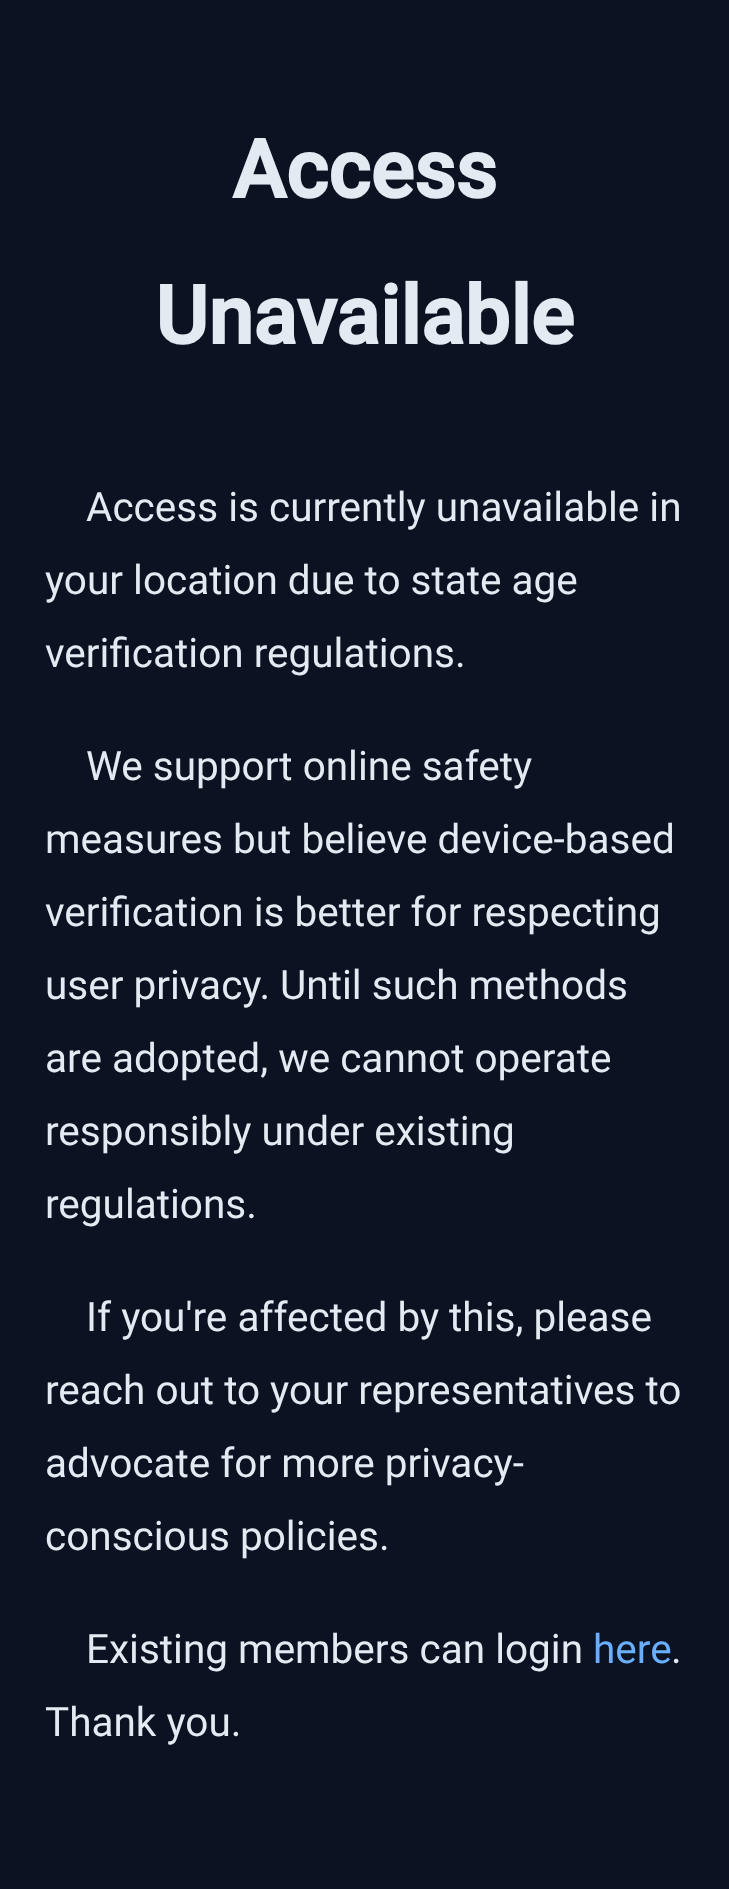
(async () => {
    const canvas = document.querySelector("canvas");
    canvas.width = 729;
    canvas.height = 1889;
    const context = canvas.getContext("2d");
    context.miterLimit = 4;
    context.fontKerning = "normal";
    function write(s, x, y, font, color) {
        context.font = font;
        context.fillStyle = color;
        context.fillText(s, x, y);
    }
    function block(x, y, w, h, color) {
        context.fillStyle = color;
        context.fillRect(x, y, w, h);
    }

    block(0, 0, 729, 1889, "rgb(11, 18, 33)");
    write("Access", 232, 198, "bold 81px Roboto", "rgb(227, 234, 242)");
    write("Unavailable", 155, 344, "bold 81px Roboto", "rgb(227, 234, 242)");
    write("Access is currently unavailable in", 86, 521, "40.5px Roboto", "rgb(227, 234, 242)");
    write("your location due to state age", 45, 594, "40.5px Roboto", "rgb(227, 234, 242)");
    write("verification regulations.", 45, 667, "40.5px Roboto", "rgb(227, 234, 242)");
    write("We support online safety", 86, 780, "40.5px Roboto", "rgb(227, 234, 242)");
    write("measures but believe device-based", 45, 853, "40.5px Roboto", "rgb(227, 234, 242)");
    write("verification is better for respecting", 45, 926, "40.5px Roboto", "rgb(227, 234, 242)");
    write("user privacy. Until such methods", 45, 999, "40.5px Roboto", "rgb(227, 234, 242)");
    write("are adopted, we cannot operate", 45, 1072, "40.5px Roboto", "rgb(227, 234, 242)");
    write("responsibly under existing", 45, 1145, "40.5px Roboto", "rgb(227, 234, 242)");
    write("regulations.", 45, 1218, "40.5px Roboto", "rgb(227, 234, 242)");
    write("If you're affected by this, please", 86, 1331, "40.5px Roboto", "rgb(227, 234, 242)");
    write("reach out to your representatives to", 45, 1404, "40.5px Roboto", "rgb(227, 234, 242)");
    write("advocate for more privacy-", 45, 1477, "40.5px Roboto", "rgb(227, 234, 242)");
    write("conscious policies.", 45, 1550, "40.5px Roboto", "rgb(227, 234, 242)");
    write("Existing members can login", 86, 1663, "40.5px Roboto", "rgb(227, 234, 242)");
    write("here", 593, 1663, "40.5px Roboto", "rgb(106, 174, 255)");
    write(".", 671, 1663, "40.5px Roboto", "rgb(227, 234, 242)");
    write("Thank you.", 45, 1736, "40.5px Roboto", "rgb(227, 234, 242)");
})();
